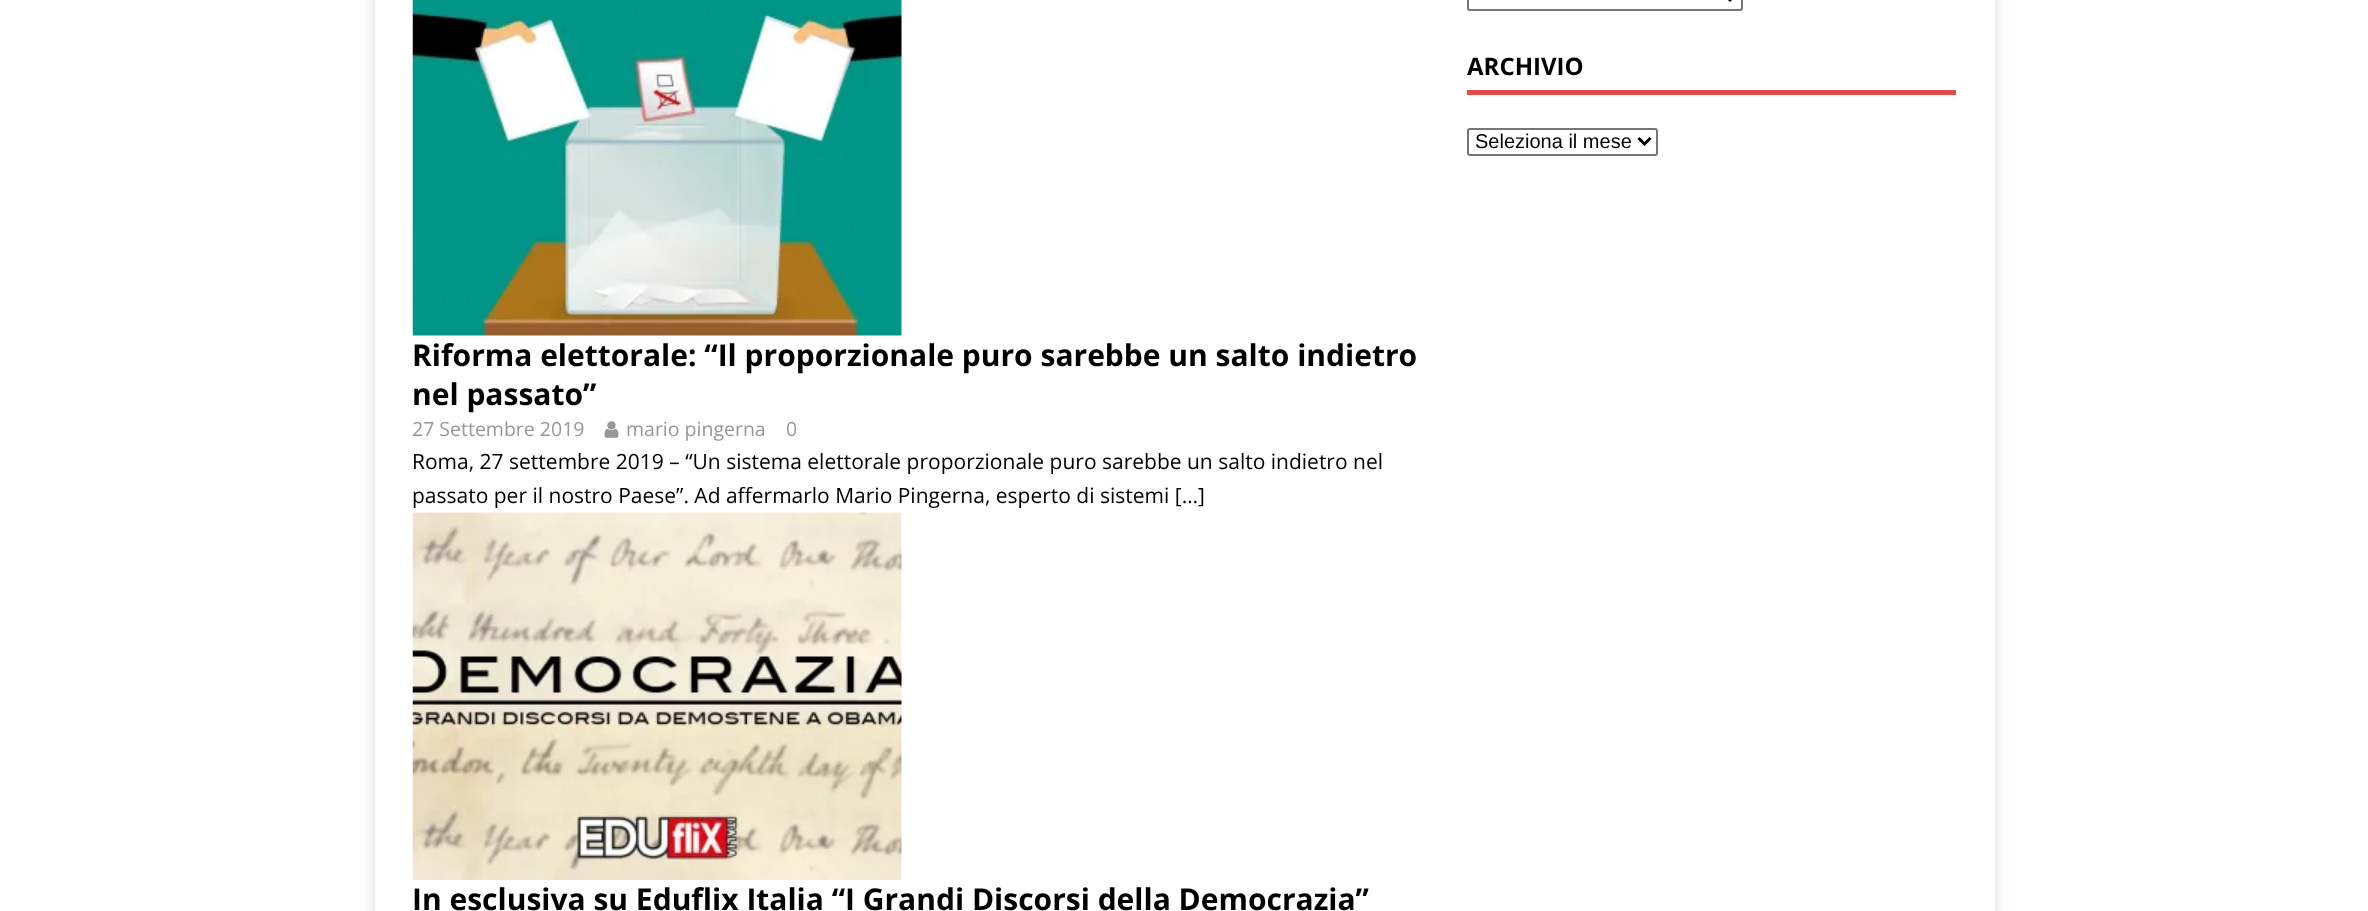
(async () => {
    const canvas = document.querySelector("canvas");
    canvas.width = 2368;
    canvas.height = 911;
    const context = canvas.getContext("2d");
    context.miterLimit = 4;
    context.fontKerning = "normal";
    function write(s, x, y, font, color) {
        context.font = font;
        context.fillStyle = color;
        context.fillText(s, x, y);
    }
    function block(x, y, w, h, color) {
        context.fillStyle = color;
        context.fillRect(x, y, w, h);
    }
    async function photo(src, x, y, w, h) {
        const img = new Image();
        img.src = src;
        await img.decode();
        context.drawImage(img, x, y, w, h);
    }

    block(0, 0, 2368, 911, "rgb(255, 255, 255)");
    context.save();
    context.beginPath();
    context.moveTo(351, 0);
    context.lineTo(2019, 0);
    context.lineTo(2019, 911);
    context.lineTo(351, 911);
    context.closePath();
    context.moveTo(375, -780);
    context.lineTo(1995, -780);
    context.lineTo(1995, 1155);
    context.lineTo(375, 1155);
    context.closePath();
    context.clip("evenodd");
    context.fillStyle = "rgba(50, 50, 50, 0.17)";
    context.filter = "blur(7.5px)";
    context.beginPath();
    context.rect(375, -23, 1620, 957);
    context.fill();
    context.filter = "none";
    context.restore();
    context.beginPath();
    context.roundRect(1468, -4, 274, 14, 2);
    context.strokeStyle = "rgb(118, 118, 118)";
    context.lineWidth = 2;
    context.stroke();
    context.beginPath();
    context.moveTo(1724, -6);
    context.lineTo(1730, 0);
    context.lineTo(1736, -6);
    context.strokeStyle = "rgb(0, 0, 0)";
    context.lineWidth = 3;
    context.stroke();
    block(1467, 90, 489, 5, "rgb(230, 73, 70)");
    write("ARCHIVIO", 1467, 75, "bold 24px Open Sans", "rgb(0, 0, 0)");
    context.beginPath();
    context.roundRect(1468, 129, 189, 26, 2);
    context.strokeStyle = "rgb(118, 118, 118)";
    context.lineWidth = 2;
    context.stroke();
    context.beginPath();
    context.moveTo(1638.5, 138);
    context.lineTo(1644.5, 144);
    context.lineTo(1650.5, 138);
    context.strokeStyle = "rgb(0, 0, 0)";
    context.lineWidth = 3;
    context.stroke();
    write("Seleziona il mese", 1475, 148, "20px Liberation Sans", "rgb(0, 0, 0)");
    await photo("media/1.png", 412, 0, 490, 336);
    write("Riforma elettorale: “Il proporzionale puro sarebbe un salto indietro", 412, 366, "bold 30px Open Sans", "rgb(0, 0, 0)");
    write("nel passato”", 412, 405, "bold 30px Open Sans", "rgb(0, 0, 0)");
    write("27 Settembre 2019", 412, 436, "19.5px Open Sans", "rgb(151, 151, 151)");
    await photo("media/2.png", 604, 421, 15, 17);
    write("mario pingerna", 626, 436, "19.5px Open Sans", "rgb(151, 151, 151)");
    write("0", 786, 436, "19.5px Open Sans", "rgb(151, 151, 151)");
    write("Roma, 27 settembre 2019 – “Un sistema elettorale proporzionale puro sarebbe un salto indietro nel", 412, 469, "21px Open Sans", "rgb(0, 0, 0)");
    write("passato per il nostro Paese”. Ad affermarlo Mario Pingerna, esperto di sistemi […]", 412, 503, "21px Open Sans", "rgb(0, 0, 0)");
    await photo("media/3.png", 412, 512, 490, 368);
    write("In esclusiva su Eduflix Italia “I Grandi Discorsi della Democrazia”", 412, 910, "bold 30px Open Sans", "rgb(0, 0, 0)");
})();
